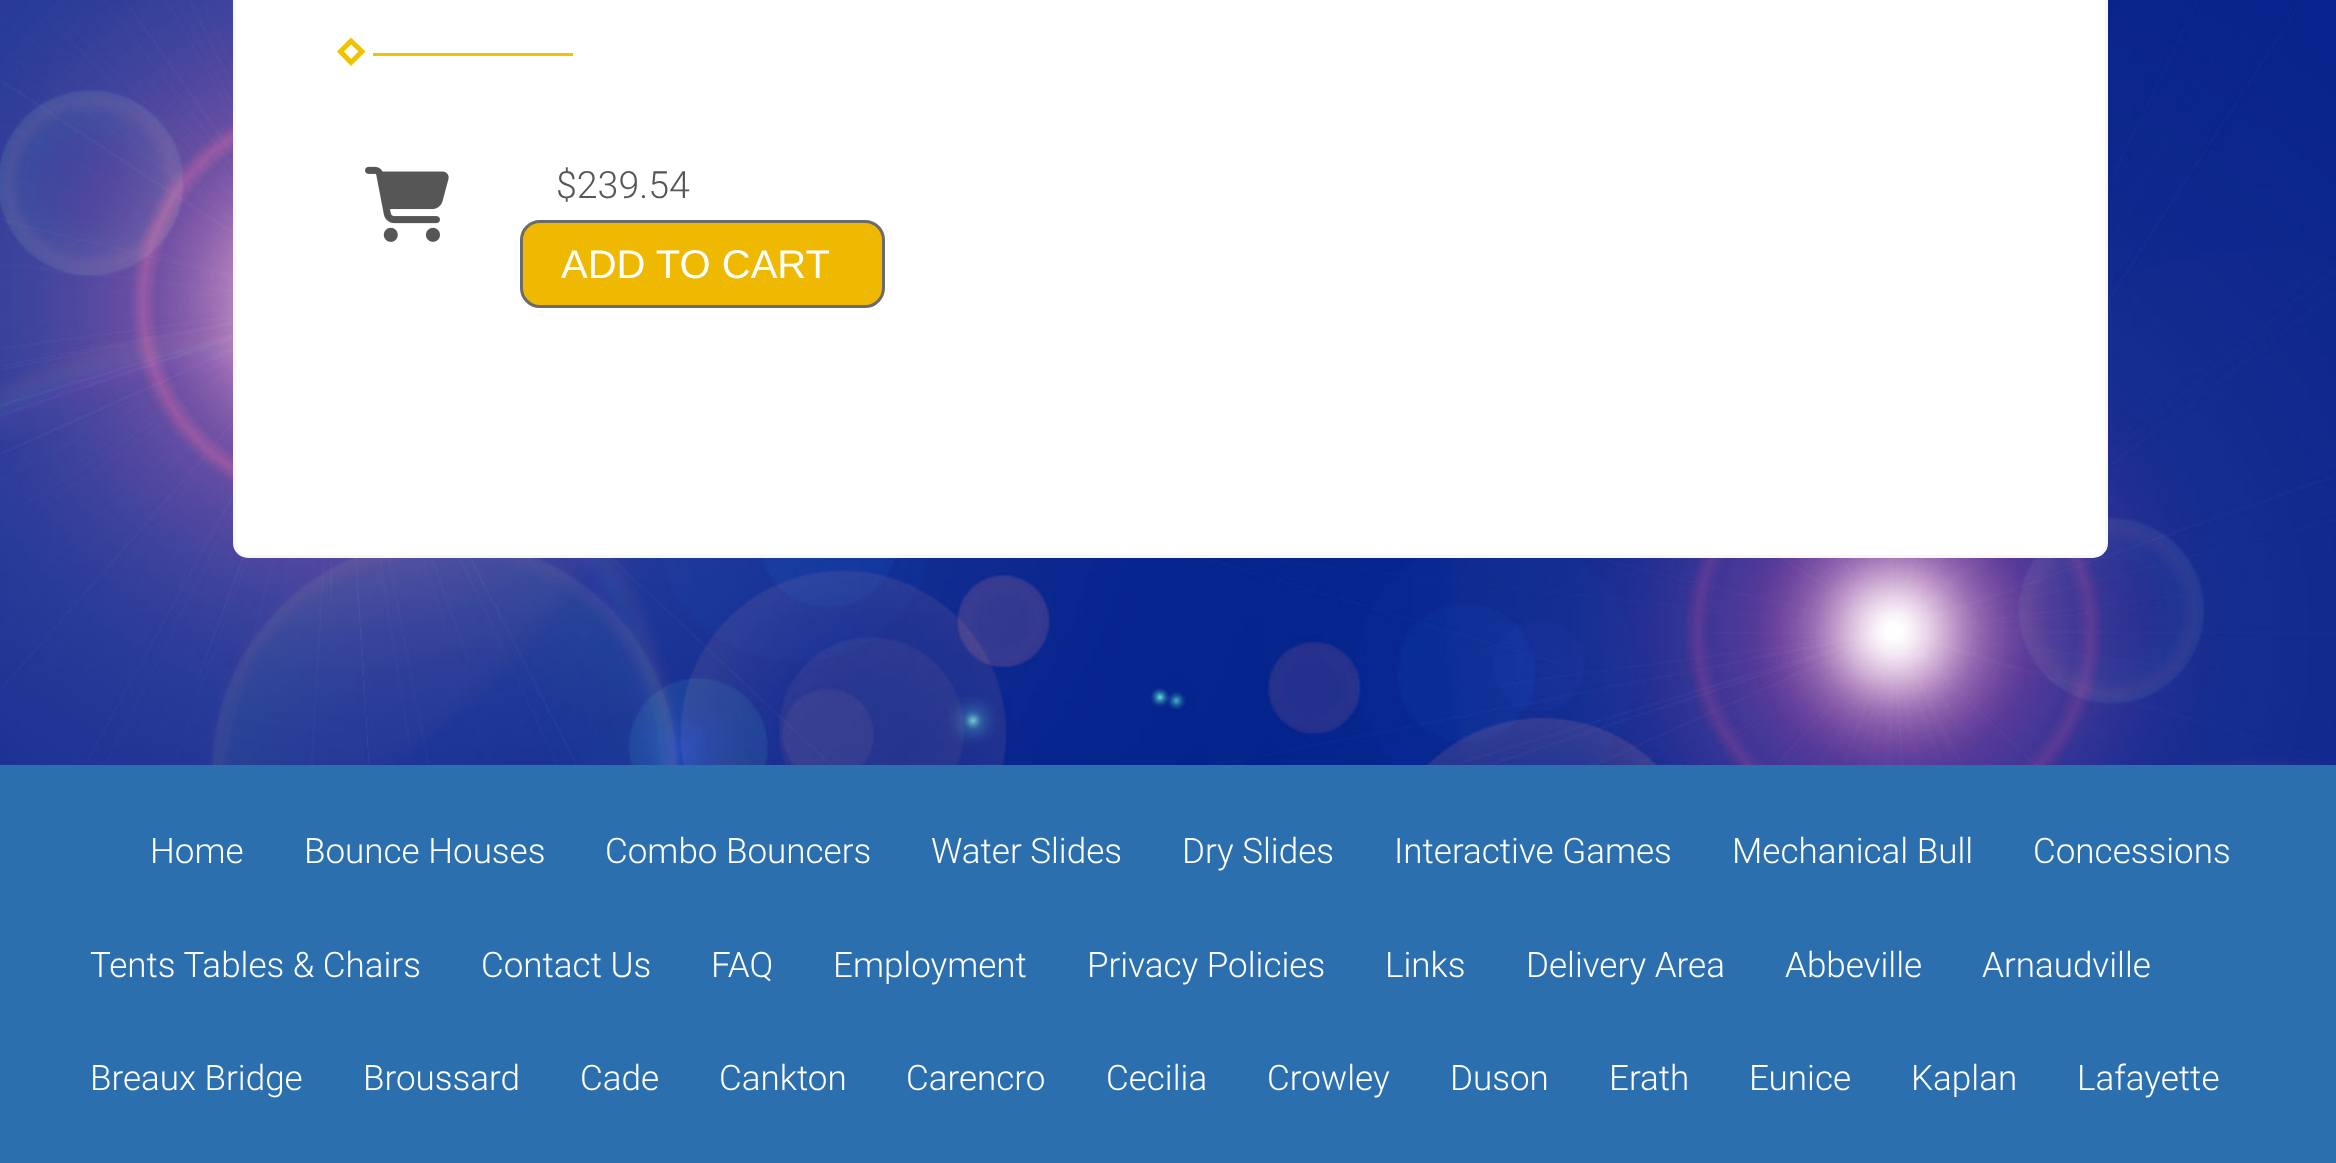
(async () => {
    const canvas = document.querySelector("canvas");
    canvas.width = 2336;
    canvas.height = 1163;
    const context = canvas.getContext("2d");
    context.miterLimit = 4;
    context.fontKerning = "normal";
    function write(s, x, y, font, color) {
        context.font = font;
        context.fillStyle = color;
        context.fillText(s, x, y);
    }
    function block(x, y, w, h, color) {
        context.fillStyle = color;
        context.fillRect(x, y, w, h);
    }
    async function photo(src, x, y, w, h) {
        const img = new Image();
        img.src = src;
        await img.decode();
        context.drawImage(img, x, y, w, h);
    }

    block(0, 0, 2336, 1163, "rgb(255, 255, 255)");
    await photo("media/1.png", 0, 0, 2336, 765);
    context.beginPath();
    context.roundRect(234.5, -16.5, 1872, 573, 13.5);
    context.fill();
    context.strokeStyle = "rgb(249, 248, 248)";
    context.lineWidth = 3;
    context.stroke();
    context.beginPath();
    context.moveTo(351, 41);
    context.lineTo(362, 51.5);
    context.lineTo(351, 62.5);
    context.lineTo(340.5, 51.5);
    context.closePath();
    context.strokeStyle = "rgb(238, 196, 0)";
    context.lineWidth = 5;
    context.stroke();
    block(373, 53, 200, 3, "rgb(238, 196, 0)");
    await photo("media/2.png", 365, 166, 84, 76);
    write("$239.54", 556, 198, "300 37.5px Roboto", "rgb(86, 86, 86)");
    context.fillStyle = "rgb(238, 185, 0)";
    context.beginPath();
    context.roundRect(521.5, 221.5, 362, 85, 18.5);
    context.fill();
    context.strokeStyle = "rgb(107, 107, 107)";
    context.lineWidth = 3;
    context.stroke();
    write("ADD TO CART", 561, 278, "40px Liberation Sans", "rgb(255, 255, 255)");
    block(0, 765, 2336, 398, "rgb(43, 111, 175)");
    write("Home", 150, 863, "300 35px Roboto", "rgb(255, 255, 255)");
    write("Bounce Houses", 304, 863, "300 35px Roboto", "rgb(255, 255, 255)");
    write("Combo Bouncers", 605, 863, "300 35px Roboto", "rgb(255, 255, 255)");
    write("Water Slides", 931, 863, "300 35px Roboto", "rgb(255, 255, 255)");
    write("Dry Slides", 1182, 863, "300 35px Roboto", "rgb(255, 255, 255)");
    write("Interactive Games", 1394, 863, "300 35px Roboto", "rgb(255, 255, 255)");
    write("Mechanical Bull", 1732, 863, "300 35px Roboto", "rgb(255, 255, 255)");
    write("Concessions", 2033, 863, "300 35px Roboto", "rgb(255, 255, 255)");
    write("Tents Tables & Chairs", 90, 977, "300 35px Roboto", "rgb(255, 255, 255)");
    write("Contact Us", 481, 977, "300 35px Roboto", "rgb(255, 255, 255)");
    write("FAQ", 711, 977, "300 35px Roboto", "rgb(255, 255, 255)");
    write("Employment", 833, 977, "300 35px Roboto", "rgb(255, 255, 255)");
    write("Privacy Policies", 1087, 977, "300 35px Roboto", "rgb(255, 255, 255)");
    write("Links", 1385, 977, "300 35px Roboto", "rgb(255, 255, 255)");
    write("Delivery Area", 1526, 977, "300 35px Roboto", "rgb(255, 255, 255)");
    write("Abbeville", 1785, 977, "300 35px Roboto", "rgb(255, 255, 255)");
    write("Arnaudville", 1982, 977, "300 35px Roboto", "rgb(255, 255, 255)");
    write("Breaux Bridge", 90, 1090, "300 35px Roboto", "rgb(255, 255, 255)");
    write("Broussard", 363, 1090, "300 35px Roboto", "rgb(255, 255, 255)");
    write("Cade", 580, 1090, "300 35px Roboto", "rgb(255, 255, 255)");
    write("Cankton", 719, 1090, "300 35px Roboto", "rgb(255, 255, 255)");
    write("Carencro", 906, 1090, "300 35px Roboto", "rgb(255, 255, 255)");
    write("Cecilia", 1106, 1090, "300 35px Roboto", "rgb(255, 255, 255)");
    write("Crowley", 1267, 1090, "300 35px Roboto", "rgb(255, 255, 255)");
    write("Duson", 1450, 1090, "300 35px Roboto", "rgb(255, 255, 255)");
    write("Erath", 1609, 1090, "300 35px Roboto", "rgb(255, 255, 255)");
    write("Eunice", 1749, 1090, "300 35px Roboto", "rgb(255, 255, 255)");
    write("Kaplan", 1911, 1090, "300 35px Roboto", "rgb(255, 255, 255)");
    write("Lafayette", 2077, 1090, "300 35px Roboto", "rgb(255, 255, 255)");
})();
